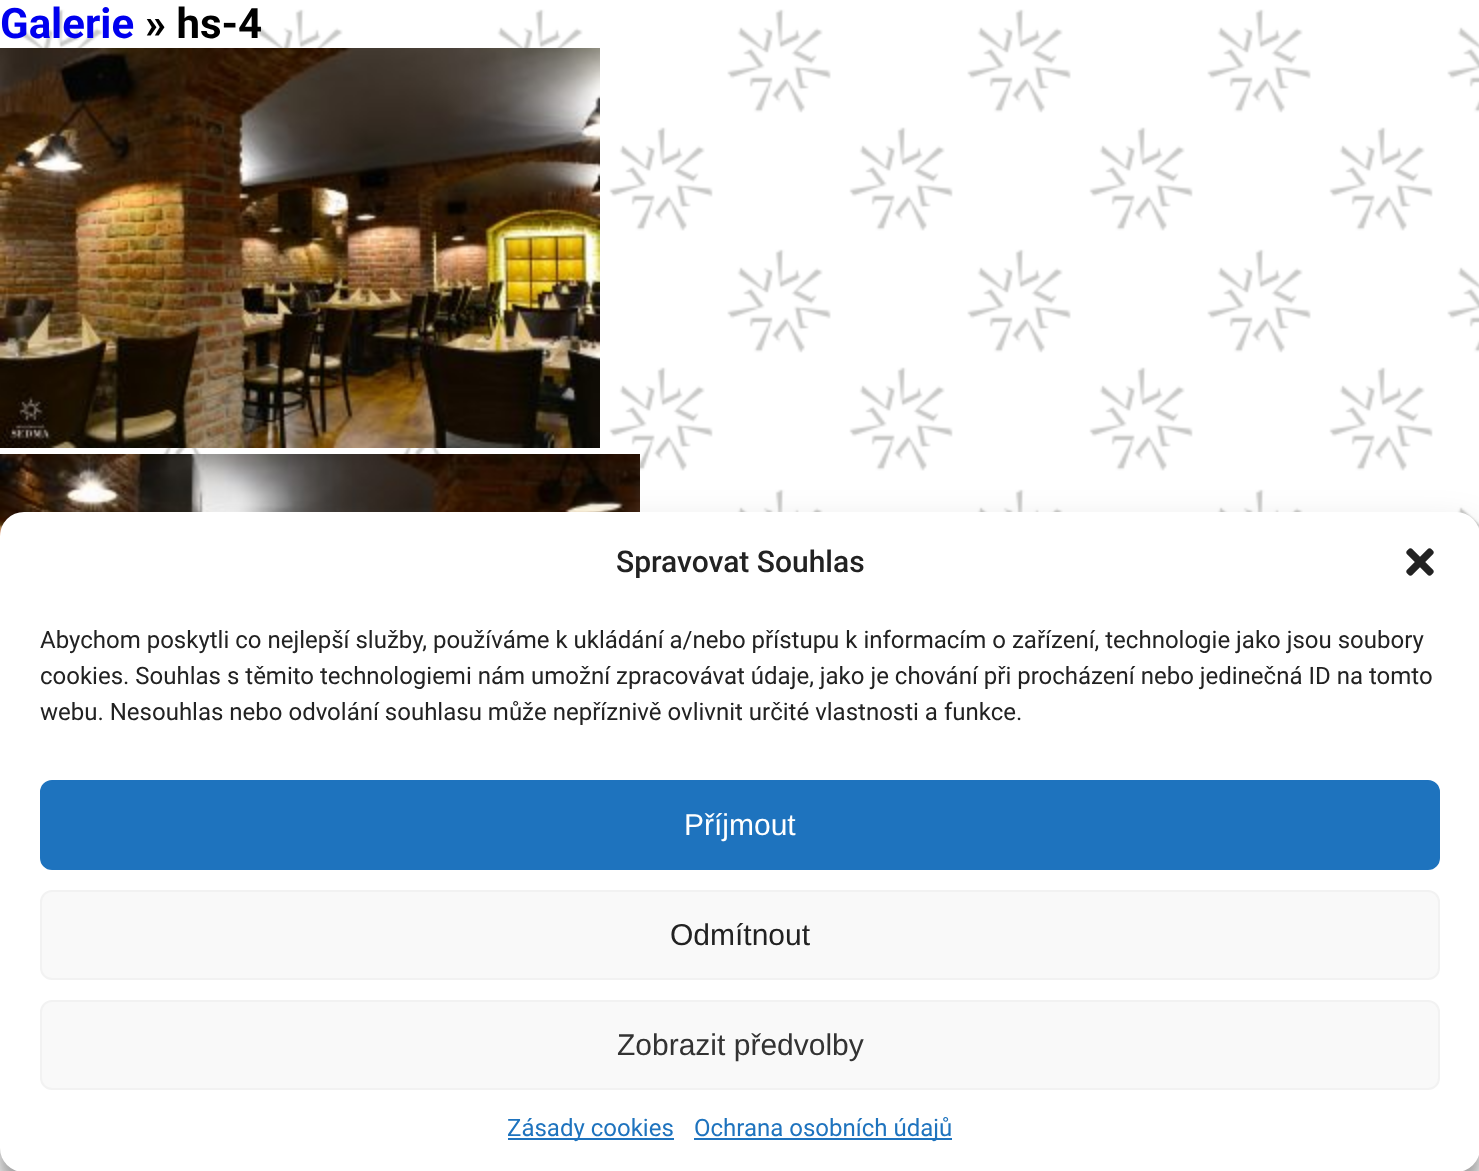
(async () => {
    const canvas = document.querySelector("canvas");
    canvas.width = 1479;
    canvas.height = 1171;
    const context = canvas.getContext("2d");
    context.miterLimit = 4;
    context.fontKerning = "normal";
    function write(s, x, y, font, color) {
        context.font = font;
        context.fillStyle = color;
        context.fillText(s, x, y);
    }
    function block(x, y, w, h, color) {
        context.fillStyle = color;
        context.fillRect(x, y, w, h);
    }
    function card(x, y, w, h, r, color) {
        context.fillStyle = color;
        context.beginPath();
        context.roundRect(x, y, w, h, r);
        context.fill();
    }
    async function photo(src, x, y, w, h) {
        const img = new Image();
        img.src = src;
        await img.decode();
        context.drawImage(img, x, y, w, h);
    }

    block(0, 0, 1479, 1171, "rgb(255, 255, 255)");
    await photo("media/1.png", 7, 9, 1472, 1162);
    write("Galerie", 0, 38, "bold 42px Roboto", "rgb(0, 0, 238)");
    write("» hs-4", 145, 38, "bold 42px Roboto", "rgb(0, 0, 0)");
    await photo("media/2.png", 0, 48, 600, 400);
    await photo("media/3.png", 0, 454, 640, 82);
    context.fillStyle = "rgba(0, 0, 0, 0.23)";
    context.filter = "blur(6px)";
    context.beginPath();
    context.roundRect(0, 524, 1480, 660, 24);
    context.fill();
    context.filter = "none";
    context.fillStyle = "rgba(0, 0, 0, 0.19)";
    context.filter = "blur(20px)";
    context.beginPath();
    context.roundRect(0, 532, 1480, 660, 24);
    context.fill();
    context.filter = "none";
    context.fillStyle = "rgba(0, 0, 0, 0.3)";
    context.filter = "blur(40px)";
    context.beginPath();
    context.rect(0, 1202, 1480, 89);
    context.fill();
    context.filter = "none";
    card(0, 512, 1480, 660, 24, "rgb(255, 255, 255)");
    write("Spravovat Souhlas", 616, 572, "500 30px Roboto", "rgb(34, 34, 34)");
    await photo("media/4.png", 1406, 548, 28, 28);
    write("Abychom poskytli co nejlepší služby, používáme k ukládání a/nebo přístupu k informacím o zařízení, technologie jako jsou soubory", 40, 648, "24px Roboto", "rgb(34, 34, 34)");
    write("cookies. Souhlas s těmito technologiemi nám umožní zpracovávat údaje, jako je chování při procházení nebo jedinečná ID na tomto", 40, 684, "24px Roboto", "rgb(34, 34, 34)");
    write("webu. Nesouhlas nebo odvolání souhlasu může nepříznivě ovlivnit určité vlastnosti a funkce.", 40, 720, "24px Roboto", "rgb(34, 34, 34)");
    context.fillStyle = "rgb(30, 115, 190)";
    context.beginPath();
    context.roundRect(41, 781, 1398, 88, 11);
    context.fill();
    context.strokeStyle = "rgb(30, 115, 190)";
    context.lineWidth = 2;
    context.stroke();
    write("Příjmout", 684, 835, "30px Liberation Sans", "rgb(255, 255, 255)");
    context.fillStyle = "rgb(249, 249, 249)";
    context.beginPath();
    context.roundRect(41, 891, 1398, 88, 11);
    context.fill();
    context.strokeStyle = "rgb(242, 242, 242)";
    context.stroke();
    write("Odmítnout", 670, 945, "30px Liberation Sans", "rgb(34, 34, 34)");
    context.fillStyle = "rgb(249, 249, 249)";
    context.beginPath();
    context.roundRect(41, 1001, 1398, 88, 11);
    context.fill();
    context.stroke();
    write("Zobrazit předvolby", 617, 1055, "30px Liberation Sans", "rgb(51, 51, 51)");
    block(508, 1138, 166, 2, "rgb(30, 115, 190)");
    write("Zásady cookies", 507, 1136, "24px Roboto", "rgb(30, 115, 190)");
    block(694, 1138, 258, 2, "rgb(30, 115, 190)");
    write("Ochrana osobních údajů", 694, 1136, "24px Roboto", "rgb(30, 115, 190)");
})();
